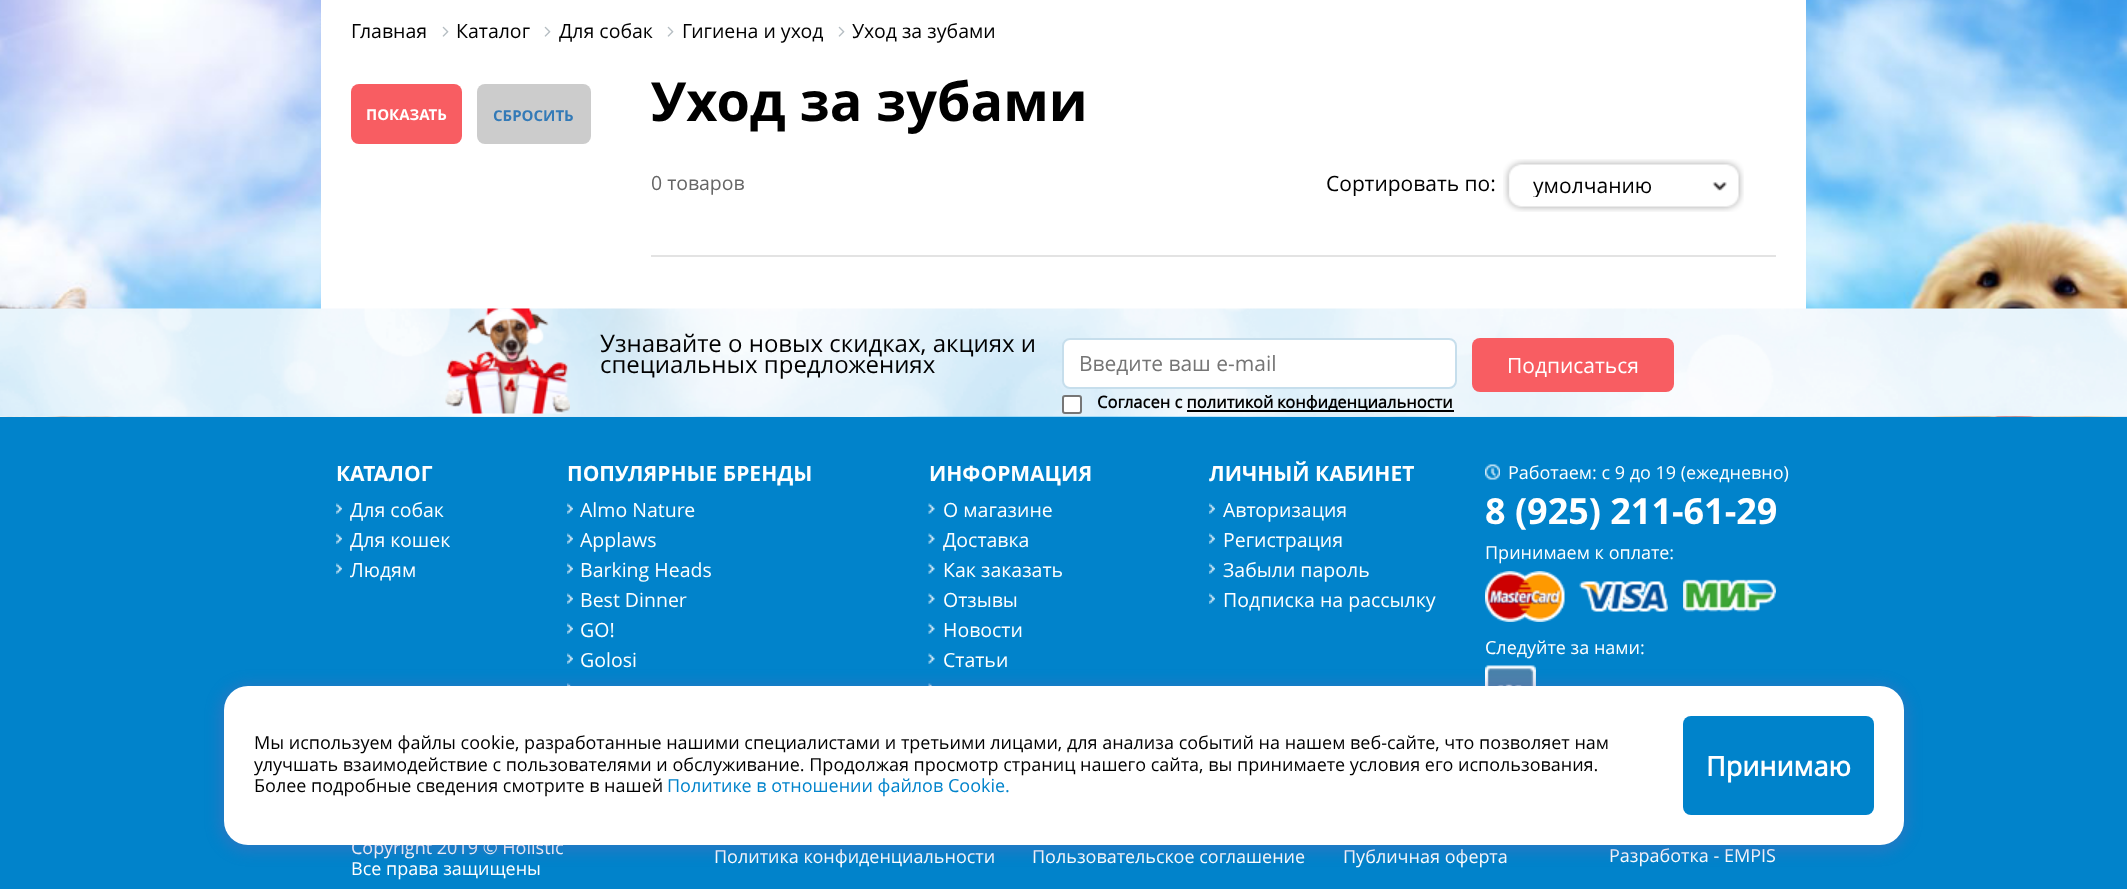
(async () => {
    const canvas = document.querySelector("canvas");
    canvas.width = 2127;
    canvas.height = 889;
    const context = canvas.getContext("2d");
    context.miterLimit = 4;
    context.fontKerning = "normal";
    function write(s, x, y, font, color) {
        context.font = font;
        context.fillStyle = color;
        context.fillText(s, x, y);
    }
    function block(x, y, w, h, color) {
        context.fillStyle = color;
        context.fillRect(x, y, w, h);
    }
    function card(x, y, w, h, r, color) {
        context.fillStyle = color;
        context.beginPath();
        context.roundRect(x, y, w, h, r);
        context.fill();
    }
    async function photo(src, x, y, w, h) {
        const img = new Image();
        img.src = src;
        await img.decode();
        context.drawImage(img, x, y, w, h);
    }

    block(0, 0, 2127, 889, "rgb(255, 255, 255)");
    await photo("media/1.png", 0, 0, 2127, 417);
    block(321, 0, 1485, 309, "rgb(255, 255, 255)");
    write("Главная", 351, 38, "19.5px Open Sans", "rgb(0, 0, 0)");
    await photo("media/2.png", 442, 26, 7, 11);
    write("Каталог", 456, 38, "19.5px Open Sans", "rgb(0, 0, 0)");
    await photo("media/2.png", 544, 26, 7, 11);
    write("Для собак", 559, 38, "19.5px Open Sans", "rgb(0, 0, 0)");
    await photo("media/2.png", 667, 26, 7, 11);
    write("Гигиена и уход", 682, 38, "19.5px Open Sans", "rgb(0, 0, 0)");
    await photo("media/2.png", 838, 26, 7, 11);
    write("Уход за зубами", 852, 38, "19.5px Open Sans", "rgb(0, 0, 0)");
    card(351, 84, 111, 60, 8, "rgb(248, 93, 98)");
    write("ПОКАЗАТЬ", 366, 120, "bold 15px Open Sans", "rgb(255, 255, 255)");
    card(477, 84, 114, 60, 8, "rgb(204, 204, 204)");
    write("СБРОСИТЬ", 493, 121, "bold 15px Open Sans", "rgb(51, 122, 183)");
    write("Уход за зубами", 651, 121, "bold 54px Open Sans", "rgb(0, 0, 0)");
    write("0 товаров", 651, 190, "19.5px 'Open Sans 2'", "rgb(102, 102, 102)");
    write("Сортировать по:", 1326, 191, "21px 'Open Sans 2'", "rgb(0, 0, 0)");
    await photo("media/3.png", 1503, 159, 241, 53);
    context.save();
    context.beginPath();
    context.rect(1533, 176, 143, 21);
    context.clip();
    write("умолчанию", 1533, 193, "21px 'Open Sans 2'", "rgb(0, 0, 0)");
    context.restore();
    block(651, 255, 1125, 2, "rgb(227, 227, 227)");
    await photo("media/4.png", 0, 308, 2127, 109);
    await photo("media/5.png", 445, 308, 125, 106);
    write("Узнавайте о новых скидках, акциях и", 600, 352, "24px 'Open Sans 2'", "rgb(0, 0, 0)");
    write("специальных предложениях", 600, 373, "24px 'Open Sans 2'", "rgb(0, 0, 0)");
    context.fillStyle = "rgb(255, 255, 255)";
    context.beginPath();
    context.roundRect(1063, 339, 393, 49, 7);
    context.fill();
    context.strokeStyle = "rgb(198, 222, 236)";
    context.lineWidth = 2;
    context.stroke();
    write("Введите ваш e-mail", 1079, 371, "21px 'Open Sans 2'", "rgb(117, 117, 117)");
    context.fillStyle = "rgb(255, 255, 255)";
    context.beginPath();
    context.roundRect(1063, 396, 18, 17, 2);
    context.fill();
    context.strokeStyle = "rgb(118, 118, 118)";
    context.stroke();
    write("Согласен с политикой", 1097, 408, "bold 16.5px 'Open Sans 2'", "rgb(0, 0, 0)");
    block(1187, 410, 267, 2, "rgb(0, 0, 0)");
    write("конфиденциальности", 1277, 408, "bold 16.5px 'Open Sans 2'", "rgb(0, 0, 0)");
    card(1472, 338, 202, 54, 8, "rgb(248, 93, 98)");
    write("Подписаться", 1507, 373, "21px 'Open Sans 2'", "rgb(255, 255, 255)");
    block(0, 417, 2127, 472, "rgb(1, 131, 203)");
    write("КАТАЛОГ", 336, 481, "bold 21px Open Sans", "rgb(255, 255, 255)");
    await photo("media/6.png", 336, 503, 6, 11);
    write("Для собак", 350, 517, "19.5px 'Open Sans 2'", "rgb(255, 255, 255)");
    await photo("media/6.png", 336, 533, 6, 11);
    write("Для кошек", 350, 547, "19.5px 'Open Sans 2'", "rgb(255, 255, 255)");
    await photo("media/6.png", 336, 563, 6, 11);
    write("Людям", 350, 577, "19.5px 'Open Sans 2'", "rgb(255, 255, 255)");
    write("ПОПУЛЯРНЫЕ БРЕНДЫ", 567, 481, "bold 21px Open Sans", "rgb(255, 255, 255)");
    await photo("media/6.png", 567, 503, 6, 11);
    write("Almo Nature", 580, 517, "19.5px 'Open Sans 2'", "rgb(255, 255, 255)");
    await photo("media/6.png", 567, 533, 6, 11);
    write("Applaws", 580, 547, "19.5px 'Open Sans 2'", "rgb(255, 255, 255)");
    await photo("media/6.png", 567, 563, 6, 11);
    write("Barking Heads", 580, 577, "19.5px 'Open Sans 2'", "rgb(255, 255, 255)");
    await photo("media/6.png", 567, 593, 6, 11);
    write("Best Dinner", 580, 607, "19.5px 'Open Sans 2'", "rgb(255, 255, 255)");
    await photo("media/6.png", 567, 623, 6, 11);
    write("GO!", 580, 637, "19.5px 'Open Sans 2'", "rgb(255, 255, 255)");
    await photo("media/6.png", 567, 653, 6, 11);
    write("Golosi", 580, 667, "19.5px 'Open Sans 2'", "rgb(255, 255, 255)");
    await photo("media/7.png", 567, 683, 6, 3);
    write("ИНФОРМАЦИЯ", 929, 481, "bold 21px Open Sans", "rgb(255, 255, 255)");
    await photo("media/8.png", 928, 503, 7, 11);
    write("О магазине", 943, 517, "19.5px 'Open Sans 2'", "rgb(255, 255, 255)");
    await photo("media/8.png", 928, 533, 7, 11);
    write("Доставка", 943, 547, "19.5px 'Open Sans 2'", "rgb(255, 255, 255)");
    await photo("media/8.png", 928, 563, 7, 11);
    write("Как заказать", 943, 577, "19.5px 'Open Sans 2'", "rgb(255, 255, 255)");
    await photo("media/8.png", 928, 593, 7, 11);
    write("Отзывы", 943, 607, "19.5px 'Open Sans 2'", "rgb(255, 255, 255)");
    await photo("media/8.png", 928, 623, 7, 11);
    write("Новости", 943, 637, "19.5px 'Open Sans 2'", "rgb(255, 255, 255)");
    await photo("media/8.png", 928, 653, 7, 11);
    write("Статьи", 943, 667, "19.5px 'Open Sans 2'", "rgb(255, 255, 255)");
    await photo("media/9.png", 928, 683, 7, 3);
    write("ЛИЧНЫЙ КАБИНЕТ", 1209, 481, "bold 21px Open Sans", "rgb(255, 255, 255)");
    await photo("media/6.png", 1209, 503, 6, 11);
    write("Авторизация", 1223, 517, "19.5px 'Open Sans 2'", "rgb(255, 255, 255)");
    await photo("media/6.png", 1209, 533, 6, 11);
    write("Регистрация", 1223, 547, "19.5px 'Open Sans 2'", "rgb(255, 255, 255)");
    await photo("media/6.png", 1209, 563, 6, 11);
    write("Забыли пароль", 1223, 577, "19.5px 'Open Sans 2'", "rgb(255, 255, 255)");
    await photo("media/6.png", 1209, 593, 6, 11);
    write("Подписка на рассылку", 1223, 607, "19.5px 'Open Sans 2'", "rgb(255, 255, 255)");
    await photo("media/10.png", 1485, 464, 15, 16);
    write("Работаем: с 9 до 19 (ежедневно)", 1508, 479, "18px 'Open Sans 2'", "rgb(255, 255, 255)");
    write("8 (925) 211-61-29", 1485, 524, "bold 36px Open Sans", "rgb(255, 255, 255)");
    write("Принимаем к оплате:", 1485, 559, "18px 'Open Sans 2'", "rgb(255, 255, 255)");
    await photo("media/11.png", 1485, 571, 80, 51);
    await photo("media/12.png", 1579, 581, 89, 31);
    await photo("media/13.png", 1683, 579, 93, 33);
    write("Следуйте за нами:", 1485, 654, "18px 'Open Sans 2'", "rgb(255, 255, 255)");
    await photo("media/14.png", 1485, 665, 51, 21);
    write("Copyright 2019 © Holistic", 351, 854, "18px 'Open Sans 2'", "rgb(255, 255, 255)");
    write("Все права защищены", 351, 875, "18px 'Open Sans 2'", "rgb(255, 255, 255)");
    write("Политика конфиденциальности", 714, 863, "18px 'Open Sans 2'", "rgb(255, 255, 255)");
    write("Пользовательское соглашение", 1032, 863, "18px 'Open Sans 2'", "rgb(255, 255, 255)");
    write("Публичная оферта", 1343, 863, "18px 'Open Sans 2'", "rgb(255, 255, 255)");
    write("Разработка - EMPIS", 1609, 862, "18px 'Open Sans 2'", "rgb(255, 255, 255)");
    context.fillStyle = "rgba(115, 100, 178, 0.3)";
    context.filter = "blur(7px)";
    context.beginPath();
    context.roundRect(219, 684, 1689, 168, 29);
    context.fill();
    context.filter = "none";
    card(224, 686, 1680, 159, 24, "rgb(255, 255, 255)");
    write("Мы используем файлы cookie, разработанные нашими специалистами и третьими лицами, для анализа событий на нашем веб-сайте, что позволяет нам", 254, 749, "18px 'Open Sans 2'", "rgb(0, 0, 0)");
    write("улучшать взаимодействие с пользователями и обслуживание. Продолжая просмотр страниц нашего сайта, вы принимаете условия его использования.", 254, 771, "18px 'Open Sans 2'", "rgb(0, 0, 0)");
    write("Более подробные сведения смотрите в нашей", 254, 792, "18px 'Open Sans 2'", "rgb(0, 0, 0)");
    write("Политике в отношении файлов Cookie.", 667, 792, "18px 'Open Sans 2'", "rgb(0, 131, 203)");
    card(1683, 716, 191, 99, 8, "rgb(0, 131, 203)");
    write("Принимаю", 1706, 776, "bold 27px 'Open Sans 2'", "rgb(255, 255, 255)");
})();
